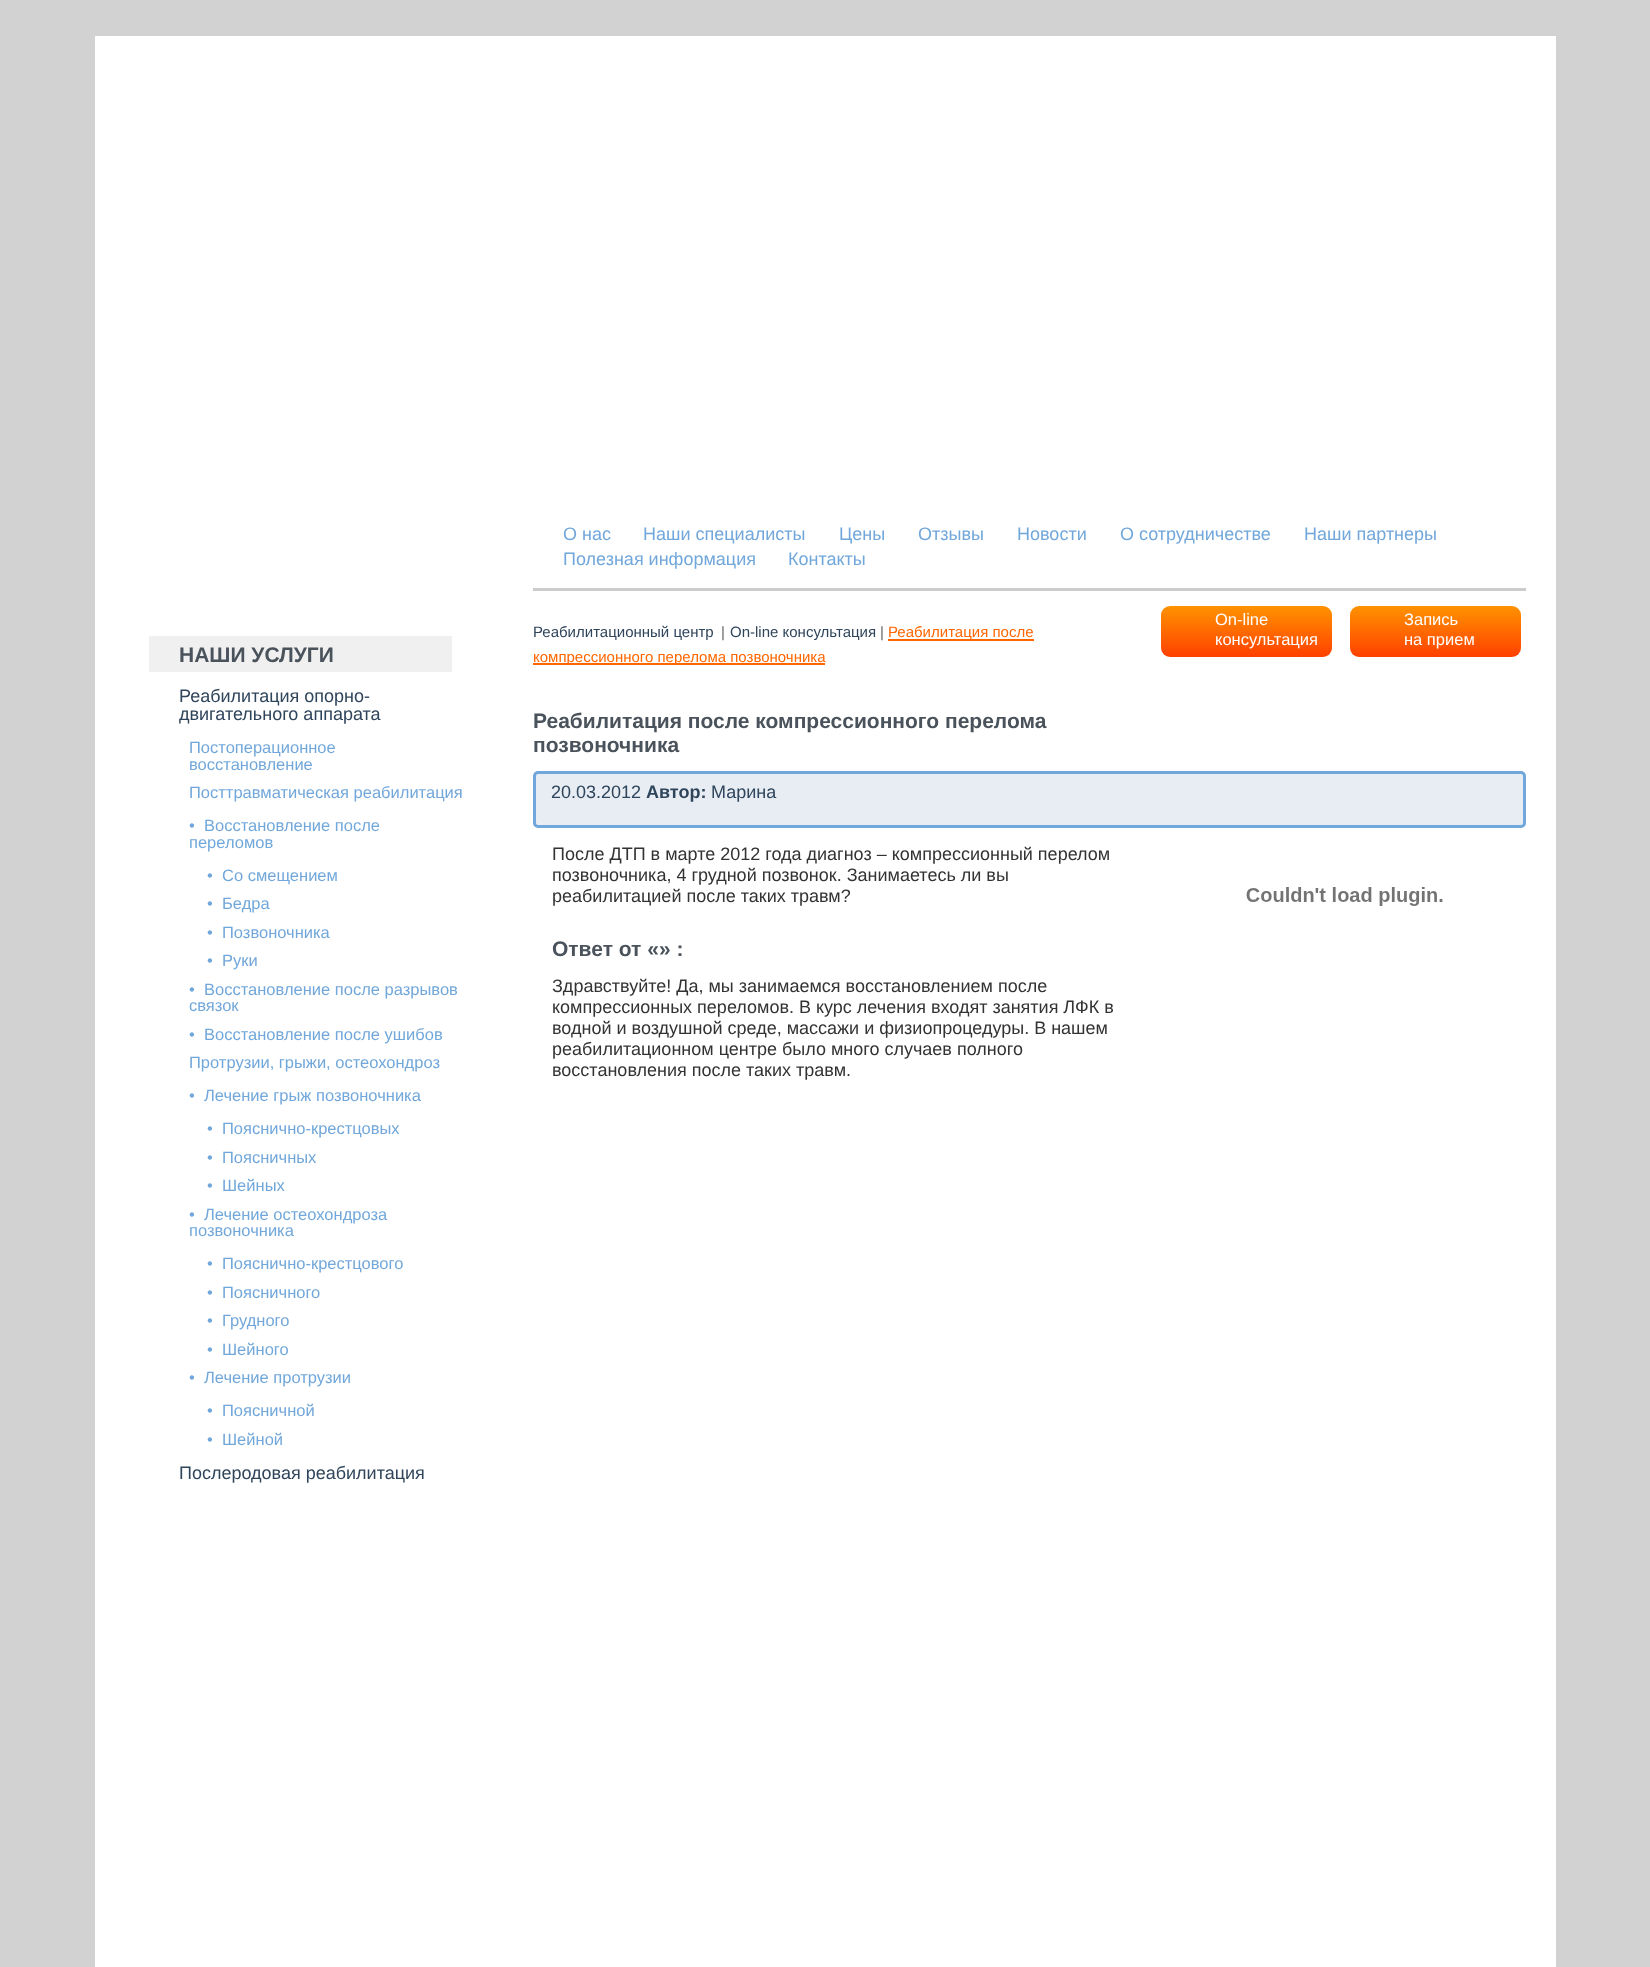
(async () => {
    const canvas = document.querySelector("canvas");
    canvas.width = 1650;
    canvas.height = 1967;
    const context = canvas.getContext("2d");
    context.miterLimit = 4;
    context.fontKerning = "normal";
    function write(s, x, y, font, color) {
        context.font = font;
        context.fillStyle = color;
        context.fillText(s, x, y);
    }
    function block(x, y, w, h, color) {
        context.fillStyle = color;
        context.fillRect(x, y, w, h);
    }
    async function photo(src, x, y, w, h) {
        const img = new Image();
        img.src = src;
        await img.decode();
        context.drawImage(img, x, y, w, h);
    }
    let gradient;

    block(0, 0, 1650, 1967, "rgb(210, 210, 210)");
    block(95, 36, 1461, 1931, "rgb(255, 255, 255)");
    block(149, 636, 303, 36, "rgb(240, 240, 240)");
    write("НАШИ УСЛУГИ", 179, 662, "bold 21px Liberation Sans", "rgb(74, 83, 91)");
    write("Реабилитация опорно-", 179, 702, "18px Liberation Sans", "rgb(47, 69, 91)");
    write("двигательного аппарата", 179, 720, "18px Liberation Sans", "rgb(47, 69, 91)");
    write("Постоперационное", 189, 753, "16.5px Liberation Sans", "rgb(113, 167, 218)");
    write("восстановление", 189, 770, "16.5px Liberation Sans", "rgb(113, 167, 218)");
    write("Посттравматическая реабилитация", 189, 798, "16.5px Liberation Sans", "rgb(113, 167, 218)");
    write("•", 189, 831, "16.5px Liberation Sans", "rgb(113, 167, 218)");
    write("Восстановление после", 204, 831, "16.5px Liberation Sans", "rgb(113, 167, 218)");
    write("переломов", 189, 848, "16.5px Liberation Sans", "rgb(113, 167, 218)");
    write("•", 207, 881, "16.5px Liberation Sans", "rgb(113, 167, 218)");
    write("Со смещением", 222, 881, "16.5px Liberation Sans", "rgb(113, 167, 218)");
    write("•", 207, 909, "16.5px Liberation Sans", "rgb(113, 167, 218)");
    write("Бедра", 222, 909, "16.5px Liberation Sans", "rgb(113, 167, 218)");
    write("•", 207, 938, "16.5px Liberation Sans", "rgb(113, 167, 218)");
    write("Позвоночника", 222, 938, "16.5px Liberation Sans", "rgb(113, 167, 218)");
    write("•", 207, 966, "16.5px Liberation Sans", "rgb(113, 167, 218)");
    write("Руки", 222, 966, "16.5px Liberation Sans", "rgb(113, 167, 218)");
    write("•", 189, 995, "16.5px Liberation Sans", "rgb(113, 167, 218)");
    write("Восстановление после разрывов", 204, 995, "16.5px Liberation Sans", "rgb(113, 167, 218)");
    write("связок", 189, 1011, "16.5px Liberation Sans", "rgb(113, 167, 218)");
    write("•", 189, 1040, "16.5px Liberation Sans", "rgb(113, 167, 218)");
    write("Восстановление после ушибов", 204, 1040, "16.5px Liberation Sans", "rgb(113, 167, 218)");
    write("Протрузии, грыжи, остеохондроз", 189, 1068, "16.5px Liberation Sans", "rgb(113, 167, 218)");
    write("•", 189, 1101, "16.5px Liberation Sans", "rgb(113, 167, 218)");
    write("Лечение грыж позвоночника", 204, 1101, "16.5px Liberation Sans", "rgb(113, 167, 218)");
    write("•", 207, 1134, "16.5px Liberation Sans", "rgb(113, 167, 218)");
    write("Пояснично-крестцовых", 222, 1134, "16.5px Liberation Sans", "rgb(113, 167, 218)");
    write("•", 207, 1163, "16.5px Liberation Sans", "rgb(113, 167, 218)");
    write("Поясничных", 222, 1163, "16.5px Liberation Sans", "rgb(113, 167, 218)");
    write("•", 207, 1191, "16.5px Liberation Sans", "rgb(113, 167, 218)");
    write("Шейных", 222, 1191, "16.5px Liberation Sans", "rgb(113, 167, 218)");
    write("•", 189, 1220, "16.5px Liberation Sans", "rgb(113, 167, 218)");
    write("Лечение остеохондроза", 204, 1220, "16.5px Liberation Sans", "rgb(113, 167, 218)");
    write("позвоночника", 189, 1236, "16.5px Liberation Sans", "rgb(113, 167, 218)");
    write("•", 207, 1269, "16.5px Liberation Sans", "rgb(113, 167, 218)");
    write("Пояснично-крестцового", 222, 1269, "16.5px Liberation Sans", "rgb(113, 167, 218)");
    write("•", 207, 1298, "16.5px Liberation Sans", "rgb(113, 167, 218)");
    write("Поясничного", 222, 1298, "16.5px Liberation Sans", "rgb(113, 167, 218)");
    write("•", 207, 1326, "16.5px Liberation Sans", "rgb(113, 167, 218)");
    write("Грудного", 222, 1326, "16.5px Liberation Sans", "rgb(113, 167, 218)");
    write("•", 207, 1355, "16.5px Liberation Sans", "rgb(113, 167, 218)");
    write("Шейного", 222, 1355, "16.5px Liberation Sans", "rgb(113, 167, 218)");
    write("•", 189, 1383, "16.5px Liberation Sans", "rgb(113, 167, 218)");
    write("Лечение протрузии", 204, 1383, "16.5px Liberation Sans", "rgb(113, 167, 218)");
    write("•", 207, 1416, "16.5px Liberation Sans", "rgb(113, 167, 218)");
    write("Поясничной", 222, 1416, "16.5px Liberation Sans", "rgb(113, 167, 218)");
    write("•", 207, 1445, "16.5px Liberation Sans", "rgb(113, 167, 218)");
    write("Шейной", 222, 1445, "16.5px Liberation Sans", "rgb(113, 167, 218)");
    write("Послеродовая реабилитация", 179, 1479, "18px Liberation Sans", "rgb(47, 69, 91)");
    block(533, 588, 993, 3, "rgb(204, 204, 204)");
    write("О нас", 563, 540, "18px Liberation Sans", "rgb(113, 167, 218)");
    write("Наши специалисты", 643, 540, "18px Liberation Sans", "rgb(113, 167, 218)");
    write("Цены", 839, 540, "18px Liberation Sans", "rgb(113, 167, 218)");
    write("Отзывы", 918, 540, "18px Liberation Sans", "rgb(113, 167, 218)");
    write("Новости", 1017, 540, "18px Liberation Sans", "rgb(113, 167, 218)");
    write("О сотрудничестве", 1120, 540, "18px Liberation Sans", "rgb(113, 167, 218)");
    write("Наши партнеры", 1304, 540, "18px Liberation Sans", "rgb(113, 167, 218)");
    write("Полезная информация", 563, 565, "18px Liberation Sans", "rgb(113, 167, 218)");
    write("Контакты", 788, 565, "18px Liberation Sans", "rgb(113, 167, 218)");
    write("Реабилитационный центр", 533, 637, "15px Liberation Sans", "rgb(47, 69, 91)");
    write("|", 721, 637, "15px Liberation Sans", "rgb(102, 102, 102)");
    write("On-line консультация", 730, 637, "15px Liberation Sans", "rgb(47, 69, 91)");
    write("|", 880, 637, "15px Liberation Sans", "rgb(102, 102, 102)");
    block(888, 639, 146, 2, "rgb(255, 102, 0)");
    write("Реабилитация после", 888, 637, "15px Liberation Sans", "rgb(255, 102, 0)");
    block(533, 663, 292, 2, "rgb(255, 102, 0)");
    write("компрессионного перелома позвоночника", 533, 662, "15px Liberation Sans", "rgb(255, 102, 0)");
    gradient = context.createLinearGradient(1247, 606, 1247, 657);
    gradient.addColorStop(0, "rgb(255, 147, 0)");
    gradient.addColorStop(1, "rgb(255, 64, 0)");
    context.fillStyle = gradient;
    context.beginPath();
    context.roundRect(1161, 606, 171, 51, 9);
    context.fill();
    write("On-line", 1215, 625, "16.5px Liberation Sans", "rgb(255, 255, 255)");
    write("консультация", 1215, 645, "16.5px Liberation Sans", "rgb(255, 255, 255)");
    gradient = context.createLinearGradient(1436, 606, 1436, 657);
    gradient.addColorStop(0, "rgb(255, 147, 0)");
    gradient.addColorStop(1, "rgb(255, 64, 0)");
    context.fillStyle = gradient;
    context.beginPath();
    context.roundRect(1350, 606, 171, 51, 9);
    context.fill();
    write("Запись", 1404, 625, "16.5px Liberation Sans", "rgb(255, 255, 255)");
    write("на прием", 1404, 645, "16.5px Liberation Sans", "rgb(255, 255, 255)");
    await photo("media/1.png", 1246, 887, 197, 19);
    write("Реабилитация после компрессионного перелома", 533, 728, "bold 21px Liberation Sans", "rgb(74, 83, 91)");
    write("позвоночника", 533, 752, "bold 21px Liberation Sans", "rgb(74, 83, 91)");
    context.fillStyle = "rgb(232, 237, 244)";
    context.beginPath();
    context.roundRect(534.5, 772.5, 990, 54, 3.5);
    context.fill();
    context.strokeStyle = "rgb(113, 167, 218)";
    context.lineWidth = 3;
    context.stroke();
    write("20.03.2012", 551, 798, "18px Liberation Sans", "rgb(47, 69, 91)");
    write("Автор:", 646, 798, "bold 18px Liberation Sans", "rgb(47, 69, 91)");
    write("Марина", 711, 798, "18px Liberation Sans", "rgb(47, 69, 91)");
    write("После ДТП в марте 2012 года диагноз – компрессионный перелом", 552, 860, "18px Liberation Sans", "rgb(51, 51, 51)");
    write("позвоночника, 4 грудной позвонок. Занимаетесь ли вы", 552, 881, "18px Liberation Sans", "rgb(51, 51, 51)");
    write("реабилитацией после таких травм?", 552, 902, "18px Liberation Sans", "rgb(51, 51, 51)");
    write("Ответ от «» :", 552, 956, "bold 21px Liberation Sans", "rgb(74, 83, 91)");
    write("Здравствуйте! Да, мы занимаемся восстановлением после", 552, 992, "18px Liberation Sans", "rgb(51, 51, 51)");
    write("компрессионных переломов. В курс лечения входят занятия ЛФК в", 552, 1013, "18px Liberation Sans", "rgb(51, 51, 51)");
    write("водной и воздушной среде, массажи и физиопроцедуры. В нашем", 552, 1034, "18px Liberation Sans", "rgb(51, 51, 51)");
    write("реабилитационном центре было много случаев полного", 552, 1055, "18px Liberation Sans", "rgb(51, 51, 51)");
    write("восстановления после таких травм.", 552, 1076, "18px Liberation Sans", "rgb(51, 51, 51)");
})();
